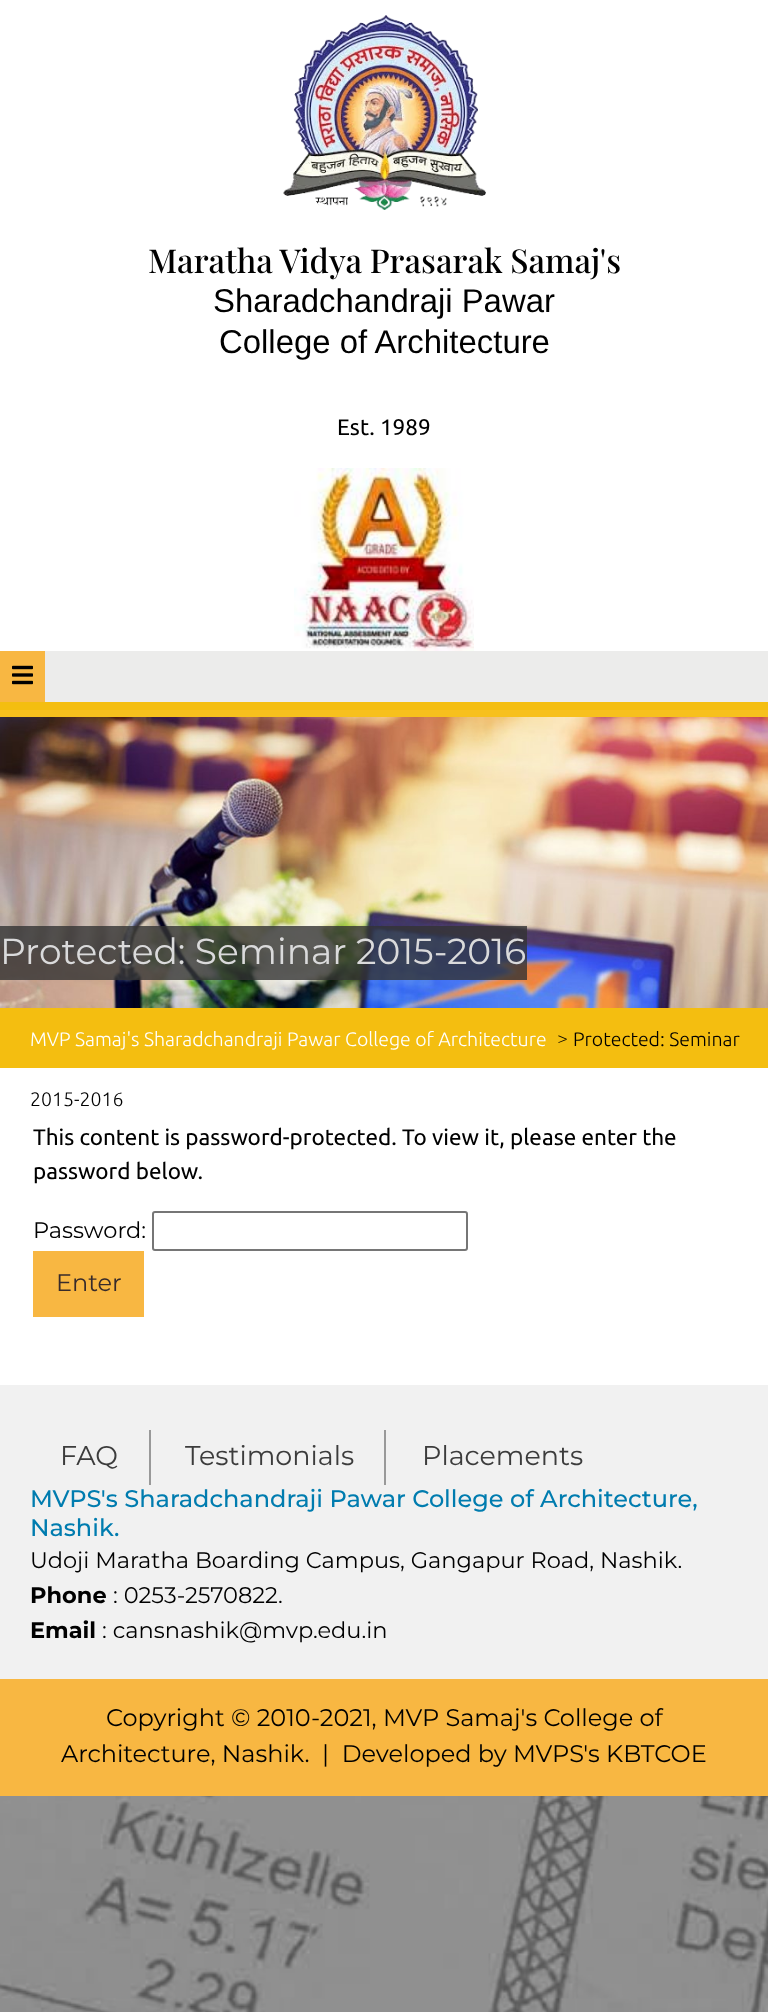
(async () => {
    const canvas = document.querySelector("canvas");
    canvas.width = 768;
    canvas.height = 2012;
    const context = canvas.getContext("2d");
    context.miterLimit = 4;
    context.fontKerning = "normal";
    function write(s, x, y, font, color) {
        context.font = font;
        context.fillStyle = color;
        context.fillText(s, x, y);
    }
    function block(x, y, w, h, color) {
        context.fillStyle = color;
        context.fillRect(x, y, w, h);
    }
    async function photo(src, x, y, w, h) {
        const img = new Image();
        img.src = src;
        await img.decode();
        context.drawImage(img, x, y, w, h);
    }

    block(0, 0, 768, 2012, "rgb(255, 255, 255)");
    await photo("media/1.png", 0, 1796, 768, 216);
    block(0, 710, 768, 7, "rgb(247, 192, 29)");
    await photo("media/2.png", 283, 15, 203, 195);
    write("Maratha Vidya Prasarak Samaj's", 148, 273, "500 32.9px Playfair Display", "rgb(0, 0, 0)");
    write("Sharadchandraji Pawar", 213, 312, "32.9px Liberation Sans", "rgb(0, 0, 0)");
    write("College of Architecture", 219, 353, "32.9px Liberation Sans", "rgb(0, 0, 0)");
    write("Est. 1989", 337, 435, "22.5px Ubuntu", "rgb(0, 0, 0)");
    await photo("media/3.png", 294, 468, 180, 183);
    block(45, 651, 723, 51, "rgb(236, 236, 235)");
    block(0, 702, 768, 8, "rgb(244, 190, 16)");
    block(0, 651, 45, 51, "rgb(248, 183, 66)");
    await photo("media/4.png", 12, 665, 21, 20);
    await photo("media/5.png", 0, 717, 768, 291);
    block(0, 926, 527, 54, "rgba(51, 51, 51, 0.8)");
    write("Protected: Seminar 2015-2016", 0, 964, "36px Montserrat", "rgb(218, 218, 219)");
    block(0, 1008, 768, 60, "rgb(244, 190, 16)");
    write("MVP Samaj's Sharadchandraji Pawar College of Architecture", 30, 1046, "300 19.5px Ubuntu", "rgb(255, 255, 255)");
    write(">", 557, 1046, "300 19.5px Montserrat", "rgb(0, 0, 0)");
    write("Protected: Seminar", 573, 1046, "300 19.5px Ubuntu", "rgb(0, 0, 0)");
    write("2015-2016", 30, 1106, "300 19.5px Ubuntu", "rgb(0, 0, 0)");
    write("This content is password-protected. To view it, please enter the", 33, 1145, "22.5px Ubuntu", "rgb(0, 0, 0)");
    write("password below.", 33, 1179, "22.5px Ubuntu", "rgb(0, 0, 0)");
    write("Password:", 33, 1238, "22.5px Montserrat", "rgb(0, 0, 0)");
    context.beginPath();
    context.roundRect(153, 1212, 314, 38, 2);
    context.strokeStyle = "rgb(118, 118, 118)";
    context.lineWidth = 2;
    context.stroke();
    block(33, 1251, 111, 66, "rgb(248, 183, 66)");
    write("Enter", 56, 1291, "24px Montserrat", "rgb(55, 43, 43)");
    block(0, 1385, 768, 294, "rgb(241, 241, 241)");
    block(149, 1430, 2, 55, "rgb(153, 153, 153)");
    write("FAQ", 60, 1465, "27px Montserrat", "rgb(60, 60, 60)");
    block(384, 1430, 2, 55, "rgb(153, 153, 153)");
    write("Testimonials", 185, 1465, "27px Montserrat", "rgb(60, 60, 60)");
    write("Placements", 422, 1465, "27px Montserrat", "rgb(60, 60, 60)");
    write("MVPS's Sharadchandraji Pawar College of Architecture,", 30, 1507, "100 24px Montserrat", "rgb(0, 124, 175)");
    write("Nashik.", 30, 1536, "100 24px Montserrat", "rgb(0, 124, 175)");
    write("Udoji Maratha Boarding Campus, Gangapur Road, Nashik.", 30, 1568, "22.5px Montserrat", "rgb(0, 0, 0)");
    write("Phone", 30, 1603, "bold 22.5px Montserrat", "rgb(0, 0, 0)");
    write(": 0253-2570822.", 113, 1603, "22.5px Montserrat", "rgb(0, 0, 0)");
    write("Email", 30, 1638, "bold 22.5px Montserrat", "rgb(0, 0, 0)");
    write(": cansnashik@mvp.edu.in", 102, 1638, "22.5px Montserrat", "rgb(0, 0, 0)");
    block(0, 1679, 768, 117, "rgb(248, 183, 66)");
    write("Copyright © 2010-2021, MVP Samaj's College of", 106, 1726, "24px Montserrat", "rgb(0, 0, 0)");
    write("Architecture, Nashik.  |  Developed by MVPS's KBTCOE", 61, 1762, "24px Montserrat", "rgb(0, 0, 0)");
})();
